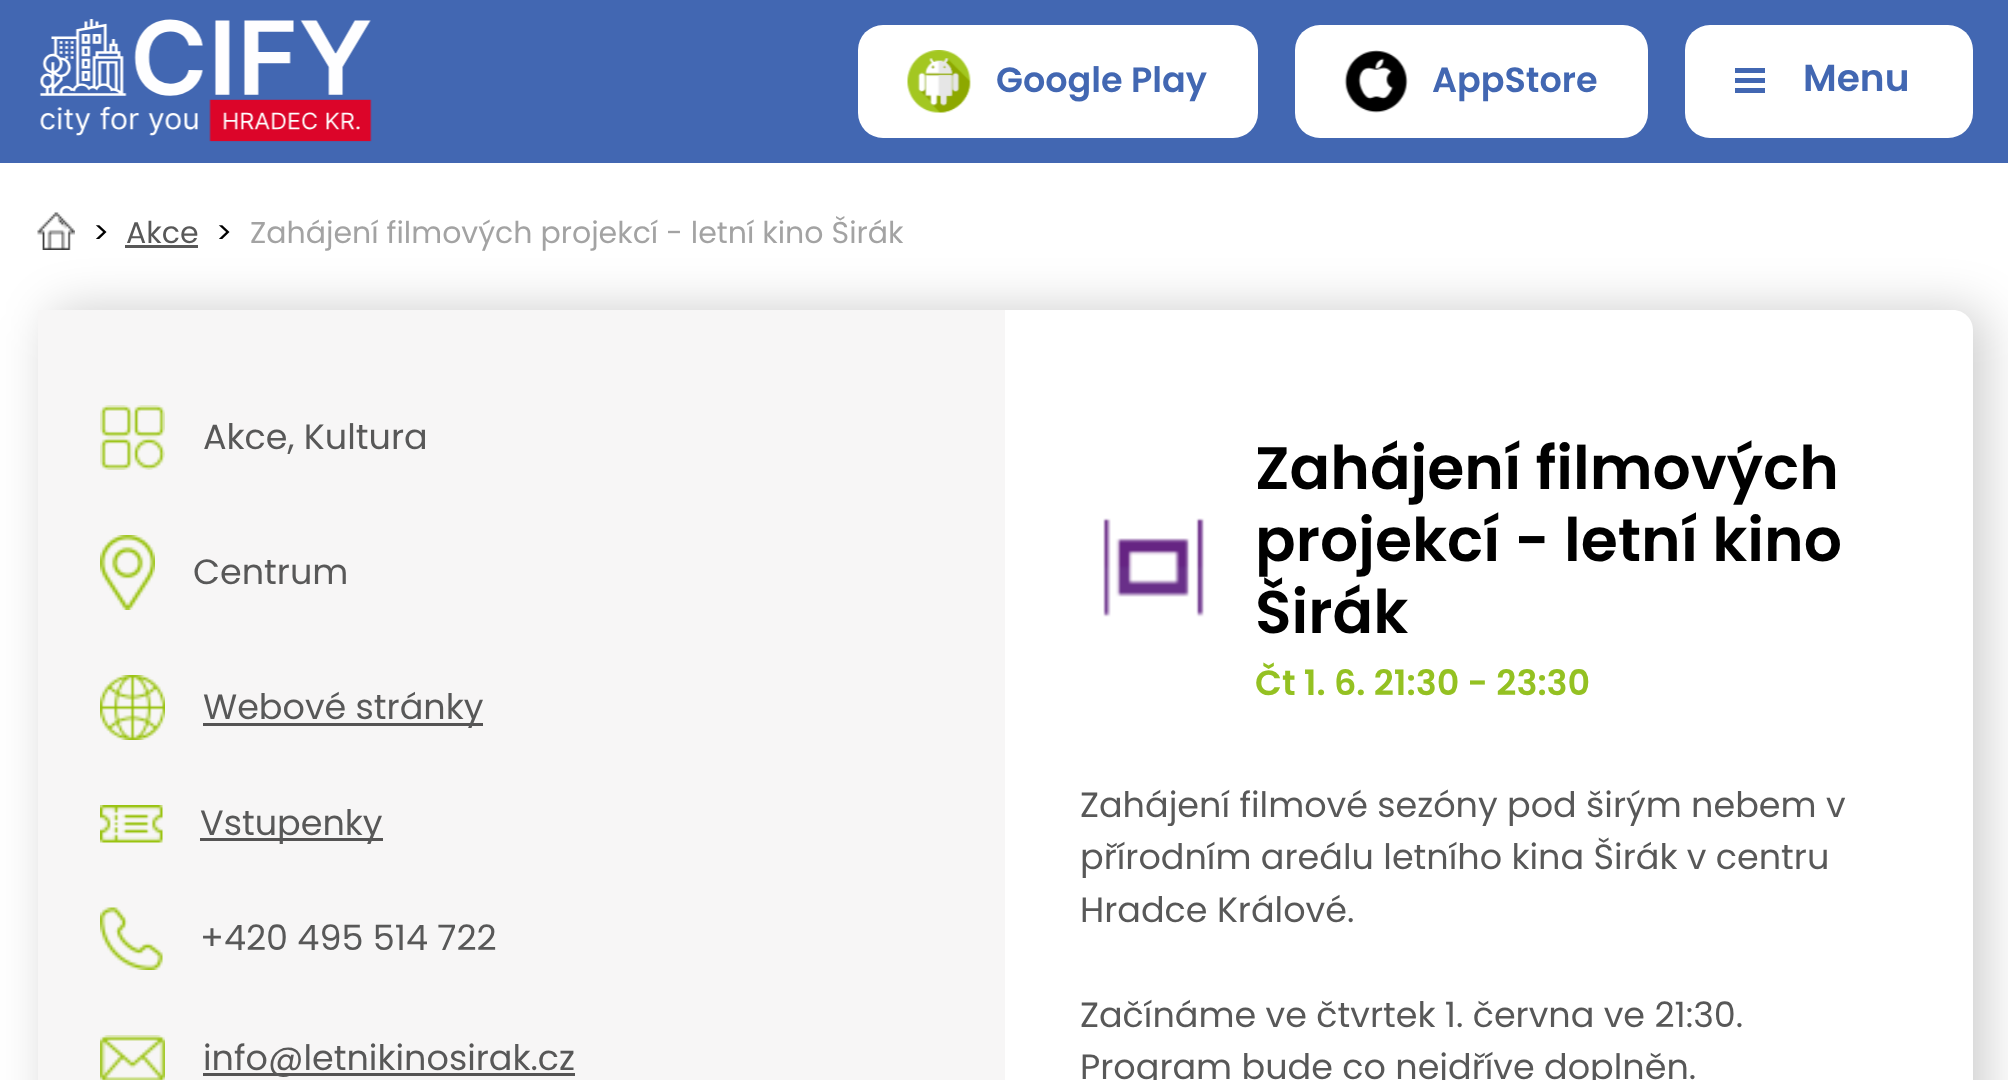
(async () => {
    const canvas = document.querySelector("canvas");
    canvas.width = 2008;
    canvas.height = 1080;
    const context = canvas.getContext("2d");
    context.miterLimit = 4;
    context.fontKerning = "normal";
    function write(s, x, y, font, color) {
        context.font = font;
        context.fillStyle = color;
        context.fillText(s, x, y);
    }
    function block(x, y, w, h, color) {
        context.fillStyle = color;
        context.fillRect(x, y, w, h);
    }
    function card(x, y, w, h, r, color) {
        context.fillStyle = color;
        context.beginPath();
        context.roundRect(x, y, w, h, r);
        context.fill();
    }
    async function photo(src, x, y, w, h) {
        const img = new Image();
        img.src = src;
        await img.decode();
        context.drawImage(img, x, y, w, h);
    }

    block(0, 0, 2008, 1080, "rgb(255, 255, 255)");
    block(0, 0, 2008, 163, "rgb(66, 103, 178)");
    await photo("media/1.png", 39, 19, 333, 123);
    card(858, 25, 400, 113, 25, "rgb(255, 255, 255)");
    await photo("media/2.png", 907, 50, 64, 63);
    write("Google Play", 996, 92, "600 35px Poppins", "rgb(66, 103, 178)");
    card(1295, 25, 353, 113, 25, "rgb(255, 255, 255)");
    await photo("media/3.png", 1344, 50, 64, 63);
    write("AppStore", 1432, 92, "600 35px Poppins", "rgb(66, 103, 178)");
    card(1685, 25, 288, 113, 25, "rgb(255, 255, 255)");
    block(1735, 68, 30, 5, "rgb(66, 103, 178)");
    block(1735, 78, 30, 5, "rgb(66, 103, 178)");
    block(1735, 88, 30, 5, "rgb(66, 103, 178)");
    write("Menu", 1803, 91, "600 37.5px Poppins", "rgb(66, 103, 178)");
    context.save();
    context.beginPath();
    context.moveTo(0, 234);
    context.lineTo(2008, 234);
    context.lineTo(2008, 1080);
    context.lineTo(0, 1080);
    context.closePath();
    context.moveTo(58, 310);
    context.lineTo(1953, 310);
    context.bezierCurveTo(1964, 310, 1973, 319, 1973, 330);
    context.lineTo(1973, 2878);
    context.bezierCurveTo(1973, 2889, 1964, 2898, 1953, 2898);
    context.lineTo(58, 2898);
    context.bezierCurveTo(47, 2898, 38, 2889, 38, 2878);
    context.lineTo(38, 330);
    context.bezierCurveTo(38, 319, 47, 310, 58, 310);
    context.closePath();
    context.clip("evenodd");
    context.fillStyle = "rgba(0, 0, 0, 0.2)";
    context.filter = "blur(25px)";
    context.beginPath();
    context.roundRect(50, 310, 1935, 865, 20);
    context.fill();
    context.filter = "none";
    context.restore();
    await photo("media/4.png", 37, 212, 38, 38);
    write(">", 93, 243, "30px Poppins", "rgb(0, 0, 0)");
    write("Akce", 126, 243, "30px Poppins", "rgb(88, 88, 88)");
    block(125, 245, 73, 3, "rgb(88, 88, 88)");
    write(">", 216, 243, "30px Poppins", "rgb(0, 0, 0)");
    write("Zahájení filmových projekcí - letní kino Širák", 250, 243, "30px Poppins", "rgb(163, 163, 163)");
    block(38, 310, 967, 770, "rgb(247, 246, 246)");
    await photo("media/5.png", 100, 405, 65, 65);
    write("Akce, Kultura", 203, 449, "35px Poppins", "rgb(88, 88, 88)");
    await photo("media/6.png", 100, 535, 55, 75);
    write("Centrum", 193, 584, "35px Poppins", "rgb(88, 88, 88)");
    await photo("media/7.png", 100, 675, 65, 65);
    block(203, 723, 280, 3, "rgb(85, 84, 84)");
    write("Webové stránky", 203, 719, "35px Poppins", "rgb(88, 88, 88)");
    await photo("media/8.png", 100, 805, 63, 38);
    block(200, 838, 183, 3, "rgb(85, 84, 84)");
    write("Vstupenky", 200, 835, "35px Poppins", "rgb(88, 88, 88)");
    await photo("media/9.png", 100, 907, 63, 63);
    write("+420 495 514 722", 200, 950, "35px Poppins", "rgb(88, 88, 88)");
    await photo("media/10.png", 100, 1035, 65, 45);
    block(203, 1073, 372, 3, "rgb(85, 84, 84)");
    write("info@letnikinosirak.cz", 203, 1070, "35px Poppins", "rgb(88, 88, 88)");
    await photo("media/11.png", 1103, 518, 102, 99);
    write("Zahájení filmových", 1255, 489, "600 60px Poppins", "rgb(0, 0, 0)");
    write("projekcí - letní kino", 1255, 561, "600 60px Poppins", "rgb(0, 0, 0)");
    write("Širák", 1255, 633, "600 60px Poppins", "rgb(0, 0, 0)");
    write("Čt 1. 6. 21:30 - 23:30", 1255, 695, "600 35px Poppins", "rgb(148, 193, 34)");
    write("Zahájení filmové sezóny pod širým nebem v", 1080, 817, "35px Poppins", "rgb(88, 88, 88)");
    write("přírodním areálu letního kina Širák v centru", 1080, 869, "35px Poppins", "rgb(88, 88, 88)");
    write("Hradce Králové.", 1080, 922, "35px Poppins", "rgb(88, 88, 88)");
    write("Začínáme ve čtvrtek 1. června ve 21:30.", 1080, 1027, "35px Poppins", "rgb(88, 88, 88)");
    write("Program bude co nejdříve doplněn.", 1080, 1079, "35px Poppins", "rgb(88, 88, 88)");
})();
